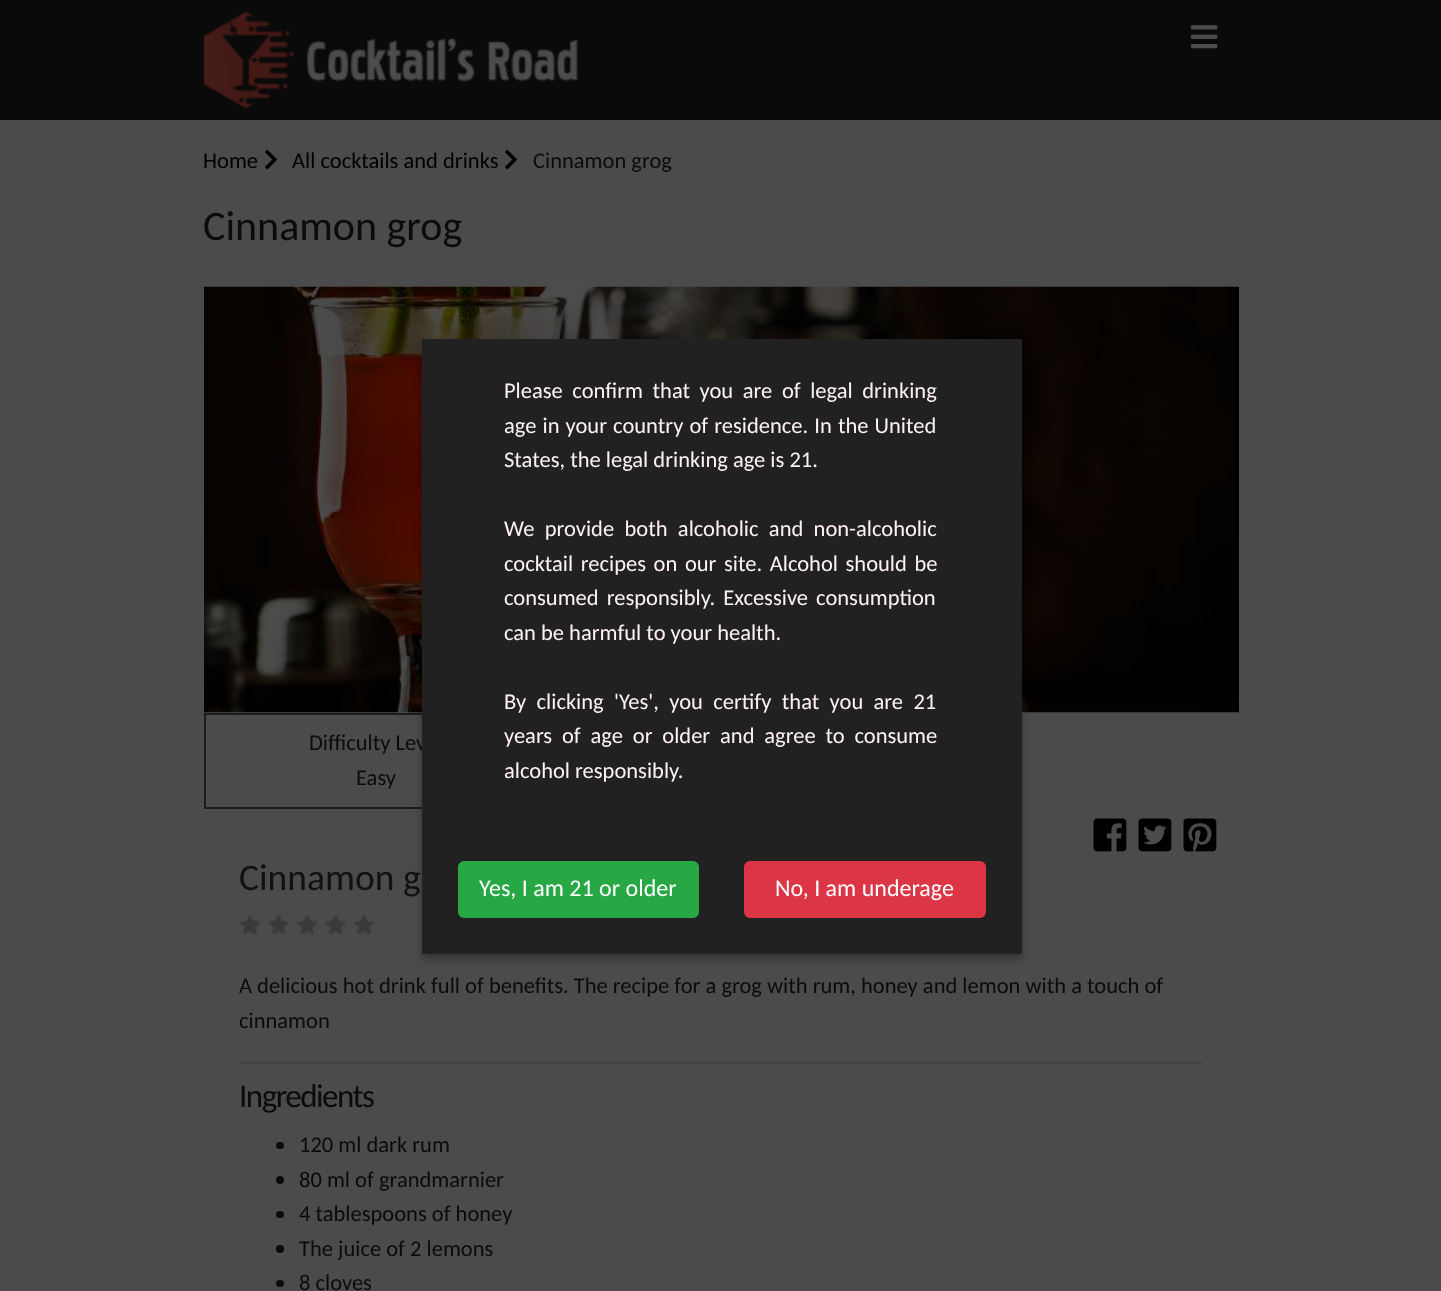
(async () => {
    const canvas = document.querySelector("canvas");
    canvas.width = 1441;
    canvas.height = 1291;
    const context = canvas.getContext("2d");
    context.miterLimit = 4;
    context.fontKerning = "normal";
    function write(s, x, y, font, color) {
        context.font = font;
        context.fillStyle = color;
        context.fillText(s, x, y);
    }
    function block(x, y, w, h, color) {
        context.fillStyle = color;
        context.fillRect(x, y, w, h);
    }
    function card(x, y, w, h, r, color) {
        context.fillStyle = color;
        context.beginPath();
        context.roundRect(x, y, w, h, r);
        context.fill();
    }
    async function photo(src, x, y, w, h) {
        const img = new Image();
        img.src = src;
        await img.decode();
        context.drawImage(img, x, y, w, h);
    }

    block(0, 0, 1441, 1291, "rgb(75, 75, 75)");
    block(0, 0, 1441, 120, "rgb(10, 10, 10)");
    await photo("media/1.png", 204, 12, 374, 96);
    await photo("media/2.png", 1191, 25, 27, 24);
    write("Home", 203, 168, "22.5px Carlito", "rgb(0, 0, 0)");
    await photo("media/3.png", 265, 150, 12, 20);
    write("All cocktails and drinks", 292, 168, "22.5px Carlito", "rgb(0, 0, 0)");
    await photo("media/3.png", 505, 150, 12, 20);
    write("Cinnamon grog", 533, 168, "22.5px Carlito", "rgb(10, 11, 12)");
    write("Cinnamon grog", 203, 240, "42px Carlito", "rgb(10, 11, 12)");
    await photo("media/4.png", 204, 286, 1035, 427);
    context.strokeStyle = "rgb(29, 29, 29)";
    context.lineWidth = 2;
    context.strokeRect(205, 714, 343, 94);
    write("Difficulty Lev", 309, 750, "22.5px Carlito", "rgb(10, 11, 12)");
    write("Easy", 356, 785, "22.5px Carlito", "rgb(10, 11, 12)");
    await photo("media/5.png", 1093, 818, 34, 34);
    await photo("media/6.png", 1138, 818, 34, 34);
    await photo("media/7.png", 1183, 818, 34, 34);
    write("Cinnamon g", 239, 890, "37.5px Carlito", "rgb(16, 17, 19)");
    await photo("media/8.png", 240, 915, 21, 20);
    await photo("media/9.png", 268, 915, 22, 20);
    await photo("media/10.png", 297, 915, 21, 20);
    await photo("media/9.png", 325, 915, 22, 20);
    await photo("media/10.png", 354, 915, 21, 20);
    write("A delicious hot drink full of benefits. The recipe for a grog with rum, honey and lemon with a touch of", 239, 993, "22.5px Carlito", "rgb(10, 11, 12)");
    write("cinnamon", 239, 1028, "22.5px Carlito", "rgb(10, 11, 12)");
    block(240, 1062, 963, 2, "rgb(68, 68, 68)");
    context.letterSpacing = "-1.5px";
    write("Ingredients", 239, 1107, "33px Carlito", "rgb(10, 11, 12)");
    card(276, 1142, 8, 7, 3.5, "rgb(10, 11, 12)");
    context.letterSpacing = "0px";
    write("120 ml dark rum", 299, 1152, "22.5px Carlito", "rgb(10, 11, 12)");
    context.beginPath();
    context.arc(280, 1180, 4, 0, Math.PI * 2);
    context.fill();
    write("80 ml of grandmarnier", 299, 1187, "22.5px Carlito", "rgb(10, 11, 12)");
    card(276, 1211, 8, 7, 3.5, "rgb(10, 11, 12)");
    write("4 tablespoons of honey", 299, 1221, "22.5px Carlito", "rgb(10, 11, 12)");
    context.beginPath();
    context.arc(280, 1249, 4, 0, Math.PI * 2);
    context.fill();
    write("The juice of 2 lemons", 299, 1256, "22.5px Carlito", "rgb(10, 11, 12)");
    card(276, 1280, 8, 7, 3.5, "rgb(10, 11, 12)");
    write("8 cloves", 299, 1290, "22.5px Carlito", "rgb(10, 11, 12)");
    context.fillStyle = "rgba(0, 0, 0, 0.3)";
    context.filter = "blur(4.5px)";
    context.beginPath();
    context.rect(422, 344, 600, 615);
    context.fill();
    context.filter = "none";
    block(422, 339, 600, 615, "rgb(33, 33, 33)");
    context.wordSpacing = "4.5px";
    write("Please confirm that you are of legal drinking", 504, 398, "22.5px Carlito", "rgb(254, 241, 244)");
    context.wordSpacing = "1px";
    write("age in your country of residence. In the United", 504, 433, "22.5px Carlito", "rgb(254, 241, 244)");
    context.wordSpacing = "0px";
    write("States, the legal drinking age is 21.", 504, 467, "22.5px Carlito", "rgb(254, 241, 244)");
    context.wordSpacing = "5.25px";
    write("We provide both alcoholic and non-alcoholic", 504, 536, "22.5px Carlito", "rgb(254, 241, 244)");
    context.wordSpacing = "2.5px";
    write("cocktail recipes on our site. Alcohol should be", 504, 571, "22.5px Carlito", "rgb(254, 241, 244)");
    context.wordSpacing = "3px";
    write("consumed responsibly. Excessive consumption", 504, 605, "22.5px Carlito", "rgb(254, 241, 244)");
    context.wordSpacing = "0px";
    write("can be harmful to your health.", 504, 640, "22.5px Carlito", "rgb(254, 241, 244)");
    context.wordSpacing = "5.25px";
    write("By clicking 'Yes', you certify that you are 21", 504, 709, "22.5px Carlito", "rgb(254, 241, 244)");
    context.wordSpacing = "4.75px";
    write("years of age or older and agree to consume", 504, 743, "22.5px Carlito", "rgb(254, 241, 244)");
    context.wordSpacing = "0px";
    write("alcohol responsibly.", 504, 778, "22.5px Carlito", "rgb(254, 241, 244)");
    context.fillStyle = "rgb(40, 167, 69)";
    context.beginPath();
    context.roundRect(459, 862, 239, 55, 5);
    context.fill();
    context.strokeStyle = "rgb(40, 167, 69)";
    context.stroke();
    write("Yes, I am 21 or older", 479, 896, "24px Carlito", "rgb(255, 255, 255)");
    context.fillStyle = "rgb(220, 53, 69)";
    context.beginPath();
    context.roundRect(745, 862, 240, 55, 5);
    context.fill();
    context.strokeStyle = "rgb(220, 53, 69)";
    context.stroke();
    write("No, I am underage", 775, 896, "24px Carlito", "rgb(255, 255, 255)");
})();
